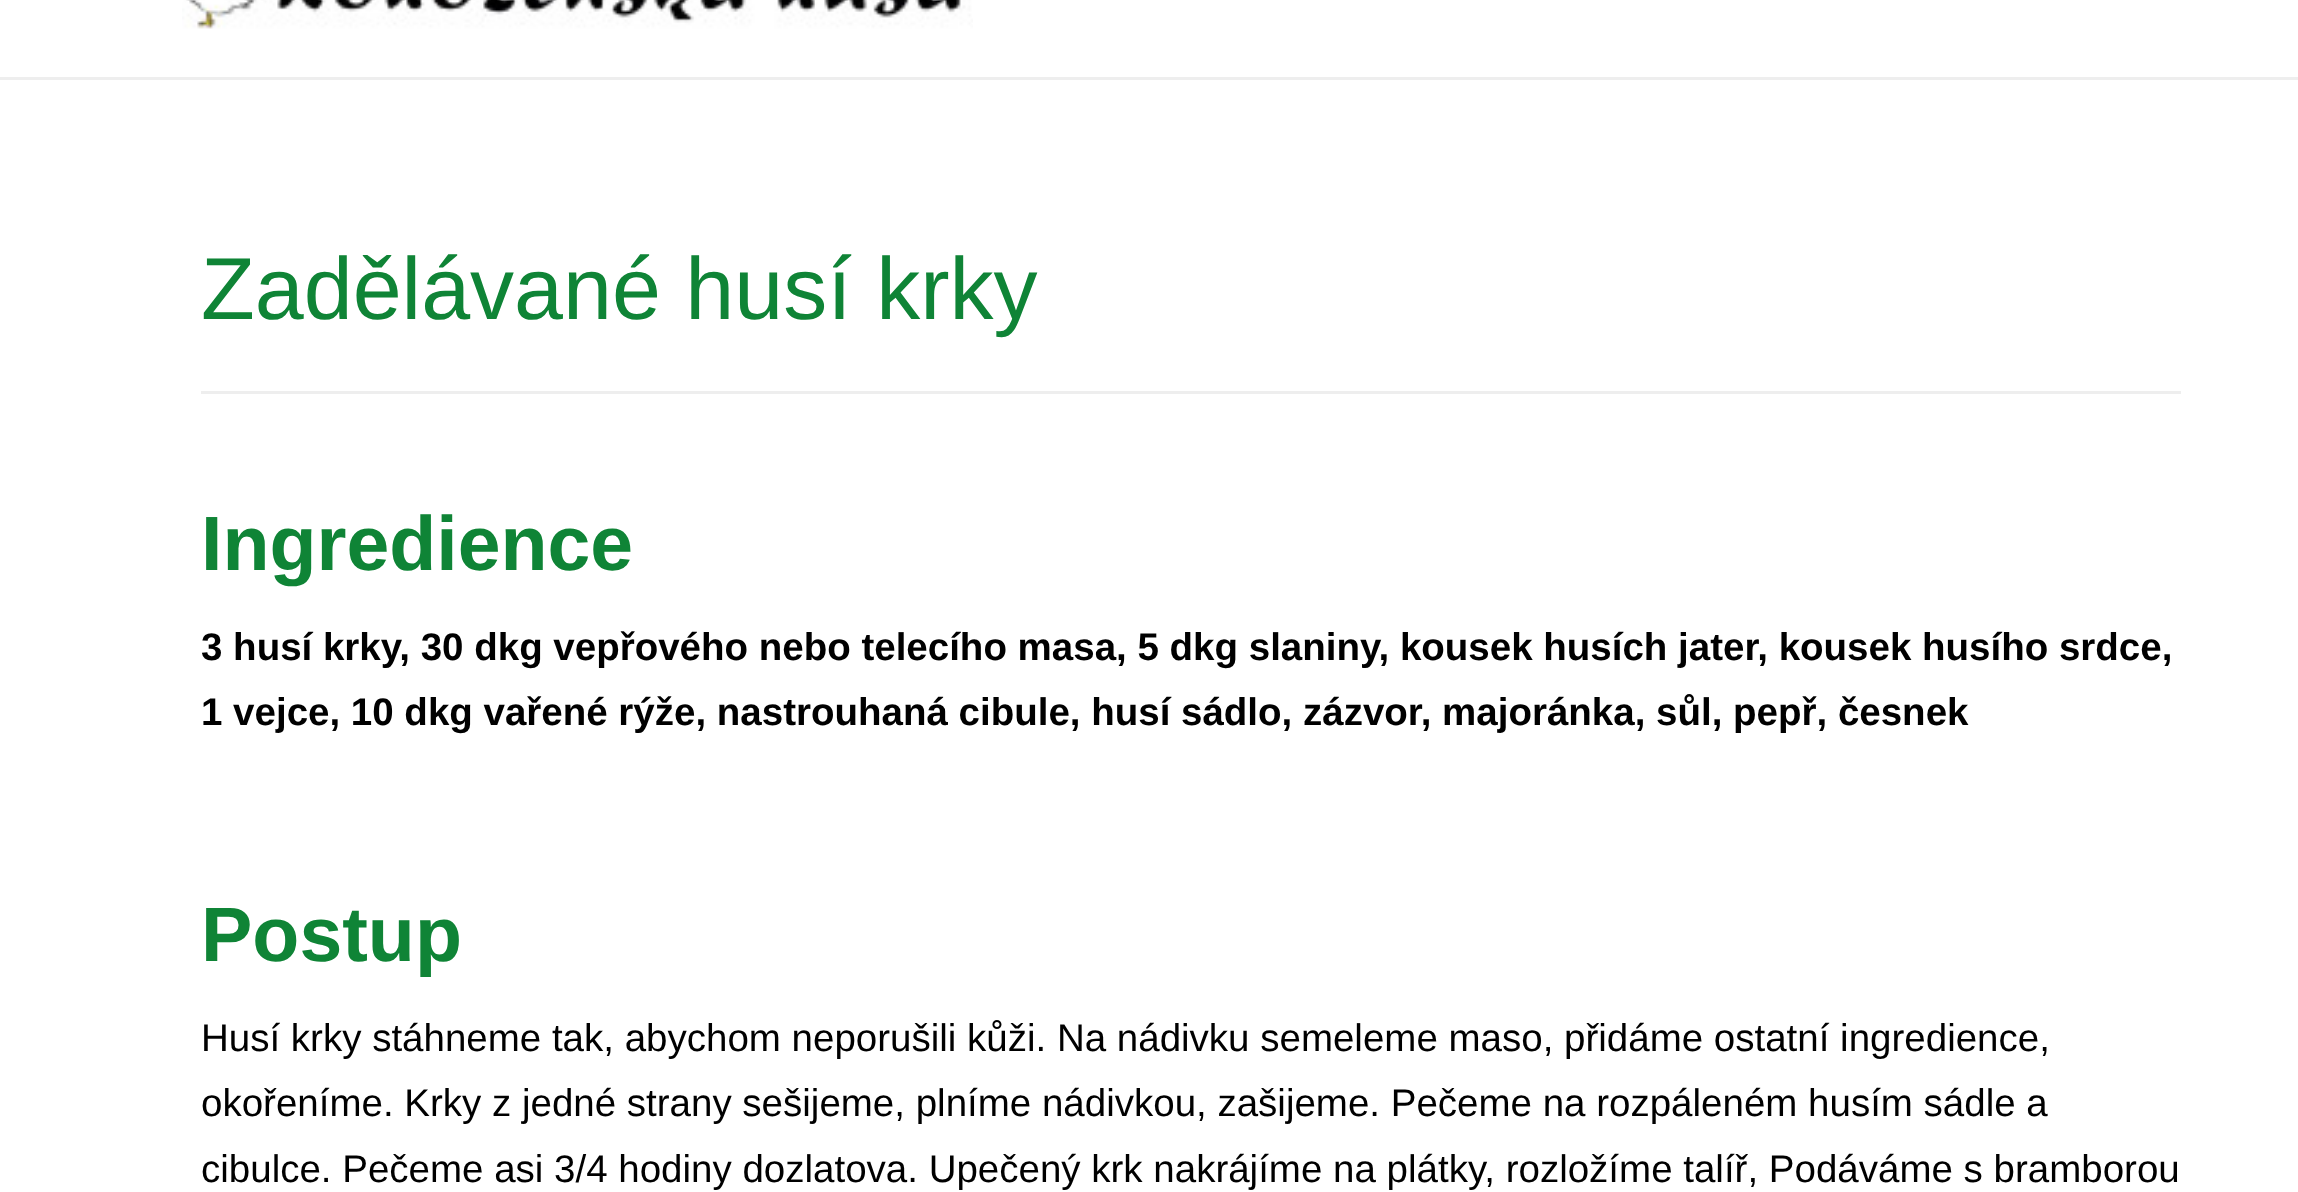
(async () => {
    const canvas = document.querySelector("canvas");
    canvas.width = 2298;
    canvas.height = 1192;
    const context = canvas.getContext("2d");
    context.miterLimit = 4;
    context.fontKerning = "normal";
    function write(s, x, y, font, color) {
        context.font = font;
        context.fillStyle = color;
        context.fillText(s, x, y);
    }
    function block(x, y, w, h, color) {
        context.fillStyle = color;
        context.fillRect(x, y, w, h);
    }
    async function photo(src, x, y, w, h) {
        const img = new Image();
        img.src = src;
        await img.decode();
        context.drawImage(img, x, y, w, h);
    }

    block(0, 0, 2298, 1192, "rgb(255, 255, 255)");
    block(0, 77, 2298, 3, "rgb(238, 238, 238)");
    await photo("media/1.png", 182, 0, 791, 29);
    block(201, 391, 1980, 3, "rgb(238, 238, 238)");
    write("Zadělávané husí krky", 201, 319, "88px Liberation Sans", "rgb(15, 132, 54)");
    write("Ingredience", 201, 570, "bold 77px Liberation Sans", "rgb(15, 132, 54)");
    write("3 husí krky, 30 dkg vepřového nebo telecího masa, 5 dkg slaniny, kousek husích jater, kousek husího srdce,", 201, 660, "bold 38.5px Liberation Sans", "rgb(0, 0, 0)");
    write("1 vejce, 10 dkg vařené rýže, nastrouhaná cibule, husí sádlo, zázvor, majoránka, sůl, pepř, česnek", 201, 725, "bold 38.5px Liberation Sans", "rgb(0, 0, 0)");
    write("Postup", 201, 961, "bold 77px Liberation Sans", "rgb(15, 132, 54)");
    write("Husí krky stáhneme tak, abychom neporušili kůži. Na nádivku semeleme maso, přidáme ostatní ingredience,", 201, 1051, "38.5px Liberation Sans", "rgb(0, 0, 0)");
    write("okořeníme. Krky z jedné strany sešijeme, plníme nádivkou, zašijeme. Pečeme na rozpáleném husím sádle a", 201, 1116, "38.5px Liberation Sans", "rgb(0, 0, 0)");
    write("cibulce. Pečeme asi 3/4 hodiny dozlatova. Upečený krk nakrájíme na plátky, rozložíme talíř, Podáváme s bramborou", 201, 1182, "38.5px Liberation Sans", "rgb(0, 0, 0)");
})();
